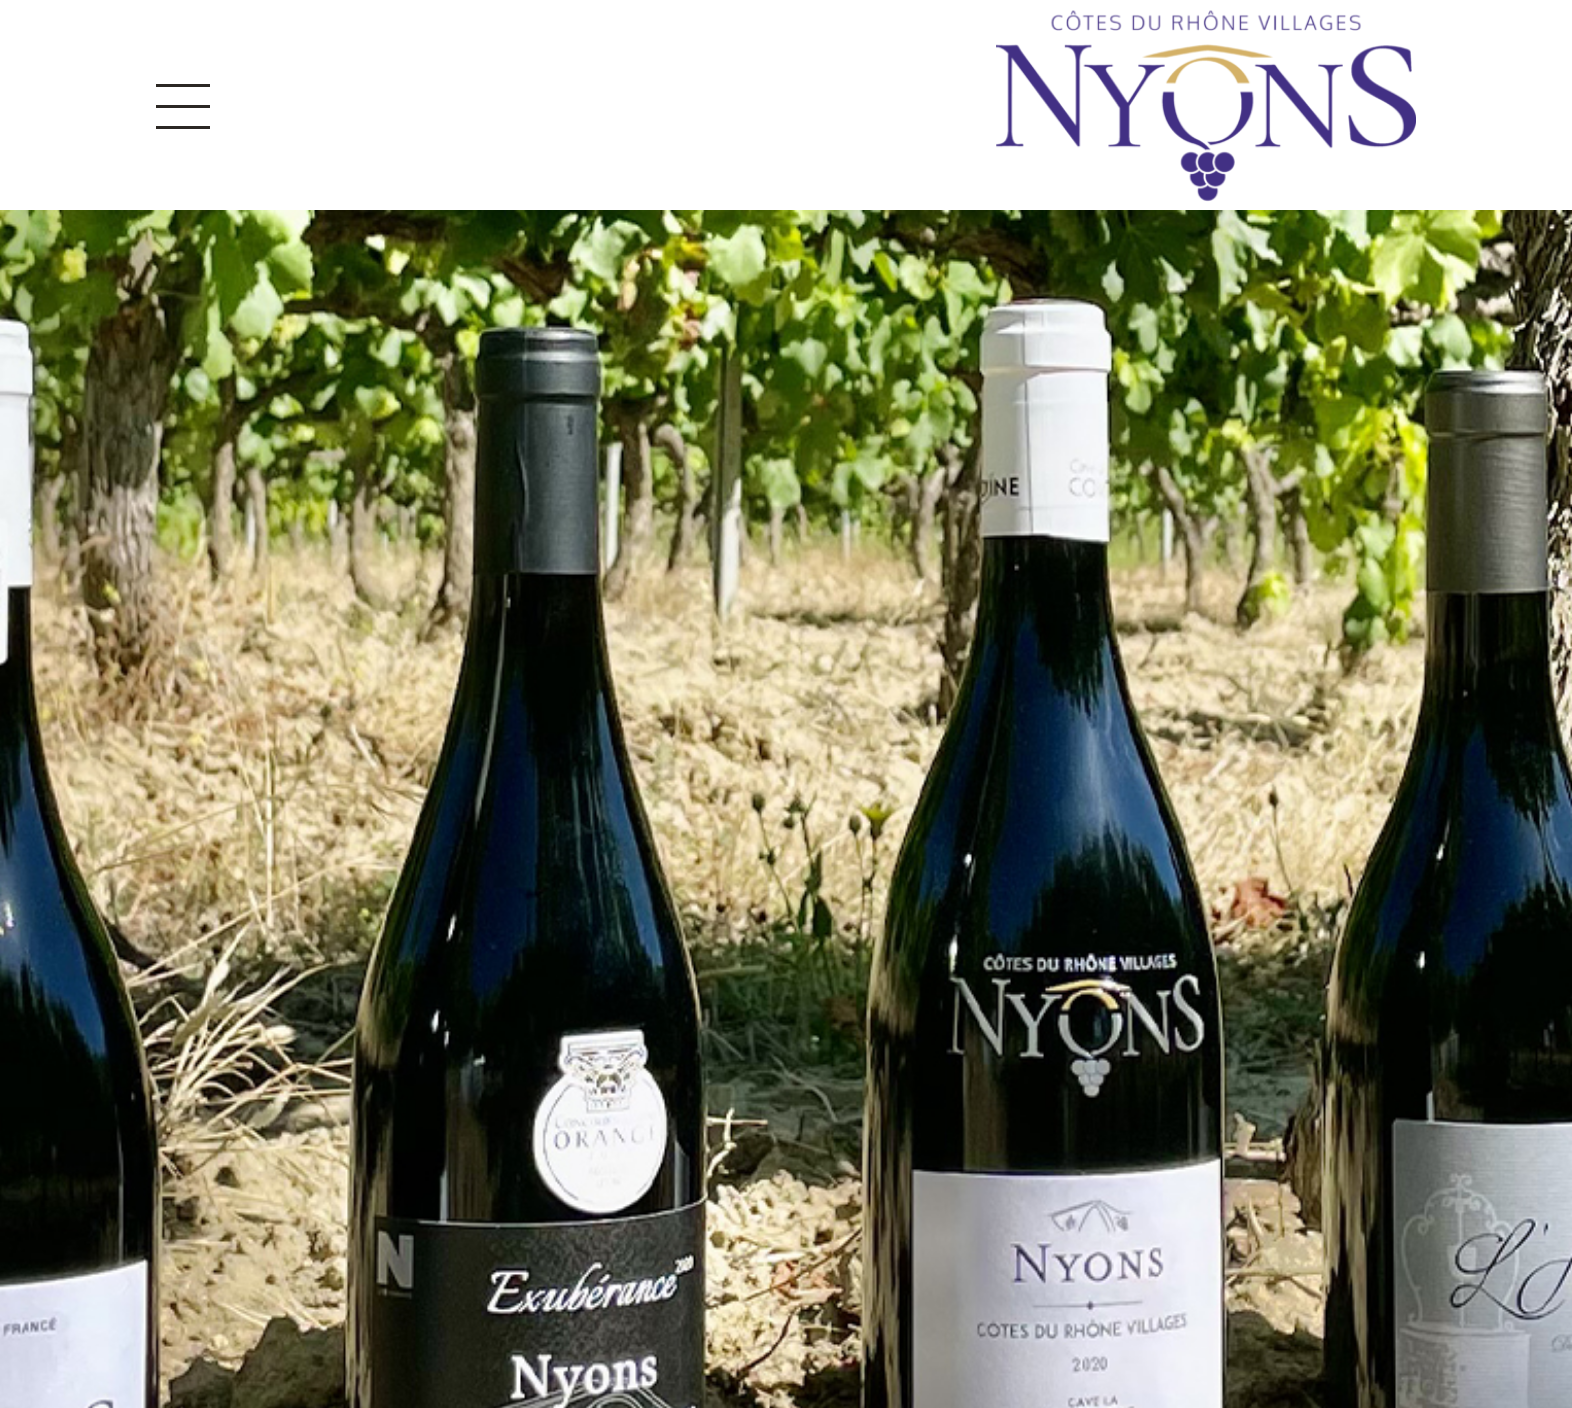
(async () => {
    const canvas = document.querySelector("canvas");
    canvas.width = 1572;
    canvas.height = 1408;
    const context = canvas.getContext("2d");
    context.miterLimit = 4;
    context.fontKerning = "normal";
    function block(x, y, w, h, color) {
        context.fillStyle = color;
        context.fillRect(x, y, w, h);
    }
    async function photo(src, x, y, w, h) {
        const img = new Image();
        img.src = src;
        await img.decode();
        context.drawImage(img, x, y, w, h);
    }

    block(0, 0, 1572, 1408, "rgb(255, 255, 255)");
    block(156, 84, 54, 3, "rgb(43, 40, 36)");
    block(156, 105, 54, 3, "rgb(43, 40, 36)");
    block(156, 126, 54, 3, "rgb(43, 40, 36)");
    await photo("media/1.png", 996, 10, 420, 192);
    await photo("media/2.png", 0, 210, 1572, 1198);
})();
